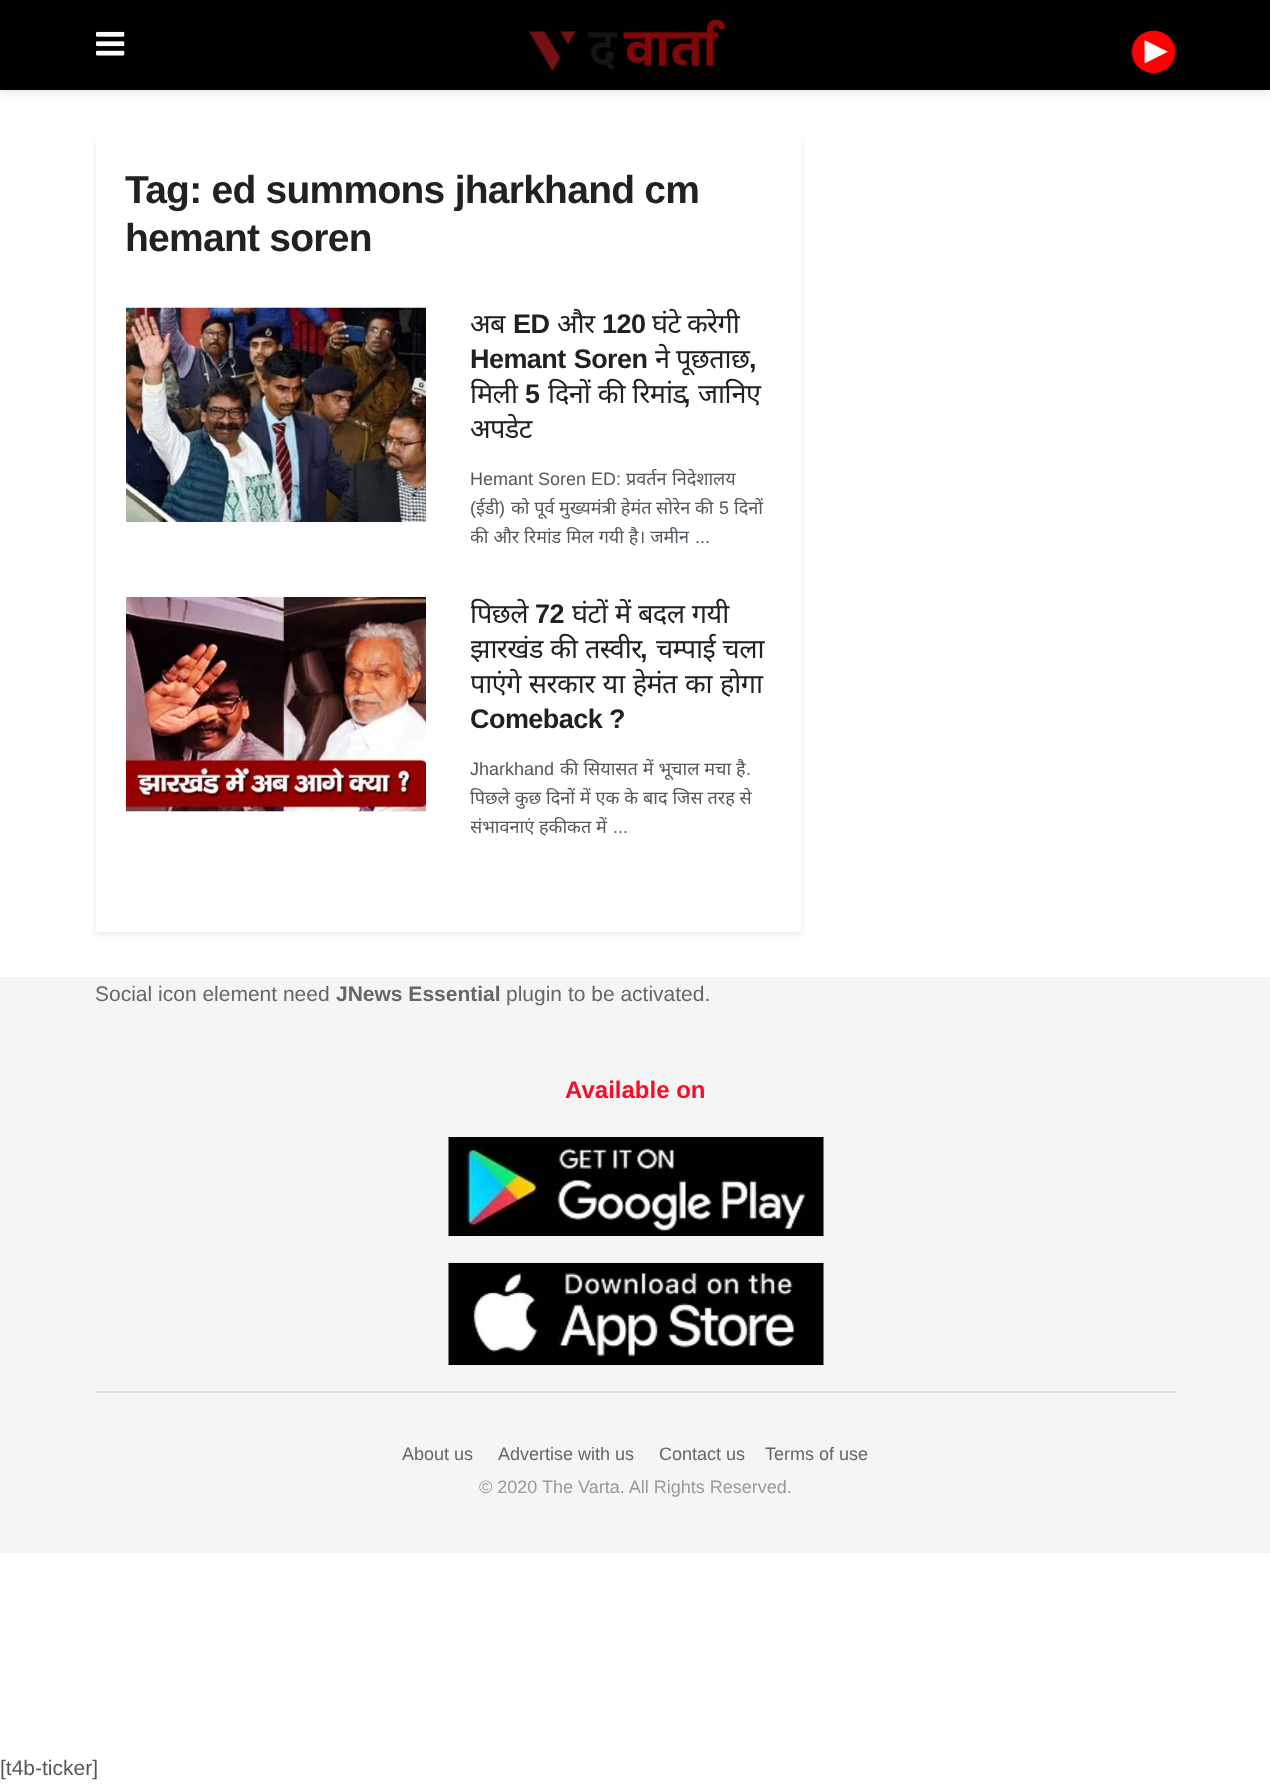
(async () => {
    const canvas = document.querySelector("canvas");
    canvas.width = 1270;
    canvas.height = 1785;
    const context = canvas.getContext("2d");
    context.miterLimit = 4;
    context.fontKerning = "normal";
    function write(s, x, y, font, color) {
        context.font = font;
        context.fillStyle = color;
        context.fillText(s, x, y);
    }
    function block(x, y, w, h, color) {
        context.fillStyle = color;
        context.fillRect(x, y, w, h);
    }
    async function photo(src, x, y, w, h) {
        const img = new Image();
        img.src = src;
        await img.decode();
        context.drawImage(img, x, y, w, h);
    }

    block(0, 0, 1270, 1785, "rgb(255, 255, 255)");
    context.fillStyle = "rgba(0, 0, 0, 0.1)";
    context.filter = "blur(4.5px)";
    context.beginPath();
    context.rect(0, 3, 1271, 90);
    context.fill();
    context.filter = "none";
    block(0, 0, 1270, 90, "rgb(0, 0, 0)");
    await photo("media/1.png", 96, 31, 29, 25);
    await photo("media/2.png", 528, 19, 198, 52);
    await photo("media/3.png", 1131, 30, 45, 44);
    context.fillStyle = "rgba(0, 0, 0, 0.08)";
    context.filter = "blur(3px)";
    context.beginPath();
    context.rect(96, 138, 705, 797);
    context.fill();
    context.filter = "none";
    block(96, 135, 705, 797, "rgb(255, 255, 255)");
    context.letterSpacing = "-0.75px";
    write("Tag: ed summons jharkhand cm", 125, 203, "bold 39px Liberation Sans", "rgb(33, 33, 33)");
    write("hemant soren", 125, 251, "bold 39px Liberation Sans", "rgb(33, 33, 33)");
    await photo("media/4.png", 126, 307, 300, 215);
    context.letterSpacing = "-0.55px";
    write("अब", 470, 333, "27px Noto Sans", "rgb(33, 33, 33)");
    write("ED", 513, 333, "bold 27px Liberation Sans", "rgb(33, 33, 33)");
    write("और", 557, 333, "27px Noto Sans", "rgb(33, 33, 33)");
    write("120", 602, 333, "bold 27px Liberation Sans", "rgb(33, 33, 33)");
    write("घंटे करेगी", 652, 333, "27px Noto Sans", "rgb(33, 33, 33)");
    context.wordSpacing = "1px";
    write("Hemant Soren", 470, 368, "bold 27px Liberation Sans", "rgb(33, 33, 33)");
    context.wordSpacing = "0px";
    write("ने", 655, 368, "27px Noto Sans", "rgb(33, 33, 33)");
    write("पूछताछ", 676, 368, "27px Noto Sans", "rgb(33, 33, 33)");
    write(",", 749, 368, "bold 27px Liberation Sans", "rgb(33, 33, 33)");
    context.save();
    context.beginPath();
    context.rect(471, 308, 300, 244);
    context.clip();
    write("मिली", 470, 403, "27px Noto Sans", "rgb(33, 33, 33)");
    context.restore();
    write("5", 525, 403, "bold 27px Liberation Sans", "rgb(33, 33, 33)");
    context.wordSpacing = "1px";
    write("दिनों की रिमांड", 548, 403, "27px Noto Sans", "rgb(33, 33, 33)");
    context.wordSpacing = "0px";
    write(",", 683, 403, "bold 27px Liberation Sans", "rgb(33, 33, 33)");
    write("जानिए", 698, 403, "27px Noto Sans", "rgb(33, 33, 33)");
    write("अपडेट", 470, 438, "27px Noto Sans", "rgb(33, 33, 33)");
    context.letterSpacing = "0px";
    write("Hemant Soren ED:", 470, 485, "18px Liberation Sans", "rgb(83, 88, 92)");
    write("प्रवर्तन", 626, 485, "18px Noto Sans", "rgb(83, 88, 92)");
    write("निदेशालय", 672, 485, "18px Noto Sans", "rgb(83, 88, 92)");
    write("(", 470, 514, "18px Liberation Sans", "rgb(83, 88, 92)");
    write("ईडी", 476, 514, "18px Noto Sans", "rgb(83, 88, 92)");
    write("को पूर्व मुख्यमंत्री हेमंत सोरेन की", 511, 514, "18px Noto Sans", "rgb(83, 88, 92)");
    write("दिनों", 734, 514, "18px Noto Sans", "rgb(83, 88, 92)");
    write(")", 499, 514, "18px Liberation Sans", "rgb(83, 88, 92)");
    write("5", 719, 514, "18px Liberation Sans", "rgb(83, 88, 92)");
    context.save();
    context.beginPath();
    context.rect(471, 308, 300, 244);
    context.clip();
    context.wordSpacing = "0.25px";
    write("की और रिमांड मिल गयी है। जमीन", 470, 543, "18px Noto Sans", "rgb(83, 88, 92)");
    context.restore();
    write("...", 695, 543, "18px Liberation Sans", "rgb(83, 88, 92)");
    block(126, 811, 300, 1, "rgb(247, 247, 247)");
    await photo("media/5.png", 126, 597, 300, 215);
    context.save();
    context.beginPath();
    context.rect(471, 597, 300, 245);
    context.clip();
    context.letterSpacing = "-0.55px";
    write("पिछले", 470, 623, "27px Noto Sans", "rgb(33, 33, 33)");
    context.restore();
    context.letterSpacing = "-0.55px";
    write("72", 535, 623, "bold 27px Liberation Sans", "rgb(33, 33, 33)");
    context.wordSpacing = "1px";
    write("घंटों में बदल गयी", 572, 623, "27px Noto Sans", "rgb(33, 33, 33)");
    context.save();
    context.beginPath();
    context.rect(471, 597, 300, 245);
    context.clip();
    write("झारखंड की तस्वीर", 470, 658, "27px Noto Sans", "rgb(33, 33, 33)");
    context.restore();
    context.wordSpacing = "0px";
    write(",", 640, 658, "bold 27px Liberation Sans", "rgb(33, 33, 33)");
    context.wordSpacing = "1px";
    write("चम्पाई चला", 656, 658, "27px Noto Sans", "rgb(33, 33, 33)");
    context.save();
    context.beginPath();
    context.rect(471, 597, 300, 245);
    context.clip();
    context.wordSpacing = "1.5px";
    write("पाएंगे सरकार या हेमंत का होगा", 470, 693, "27px Noto Sans", "rgb(33, 33, 33)");
    context.restore();
    context.wordSpacing = "0px";
    write("Comeback ?", 470, 728, "bold 27px Liberation Sans", "rgb(33, 33, 33)");
    context.letterSpacing = "0px";
    write("Jharkhand", 470, 775, "18px Liberation Sans", "rgb(83, 88, 92)");
    context.wordSpacing = "0.25px";
    write("की सियासत में भूचाल मचा है", 560, 775, "18px Noto Sans", "rgb(83, 88, 92)");
    context.wordSpacing = "0px";
    write(".", 746, 775, "18px Liberation Sans", "rgb(83, 88, 92)");
    context.wordSpacing = "0.25px";
    write("पिछले कुछ दिनों में एक के बाद जिस तरह से", 470, 804, "18px Noto Sans", "rgb(83, 88, 92)");
    context.save();
    context.beginPath();
    context.rect(471, 597, 300, 245);
    context.clip();
    write("संभावनाएं हकीकत में", 470, 833, "18px Noto Sans", "rgb(83, 88, 92)");
    context.restore();
    context.wordSpacing = "0px";
    write("...", 613, 833, "18px Liberation Sans", "rgb(83, 88, 92)");
    block(0, 977, 1270, 576, "rgb(245, 245, 245)");
    write("Social icon element need", 95, 1001, "21px Liberation Sans", "rgb(102, 102, 102)");
    write("JNews Essential", 336, 1001, "bold 21px Liberation Sans", "rgb(102, 102, 102)");
    write("plugin to be activated.", 506, 1001, "21px Liberation Sans", "rgb(102, 102, 102)");
    write("Available on", 565, 1098, "bold 24px Liberation Sans", "rgb(247, 13, 40)");
    await photo("media/6.png", 448, 1137, 376, 99);
    await photo("media/7.png", 448, 1263, 376, 102);
    block(96, 1391, 1080, 2, "rgb(224, 224, 224)");
    write("About us", 402, 1460, "18px Liberation Sans", "rgb(102, 102, 102)");
    write("Advertise with us", 498, 1460, "18px Liberation Sans", "rgb(102, 102, 102)");
    write("Contact us", 659, 1460, "18px Liberation Sans", "rgb(102, 102, 102)");
    write("Terms of use", 765, 1460, "18px Liberation Sans", "rgb(102, 102, 102)");
    write("© 2020 The Varta. All Rights Reserved.", 479, 1493, "18px Liberation Sans", "rgb(153, 153, 153)");
    write("[t4b-ticker]", 0, 1775, "21px Liberation Sans", "rgb(83, 88, 92)");
})();
